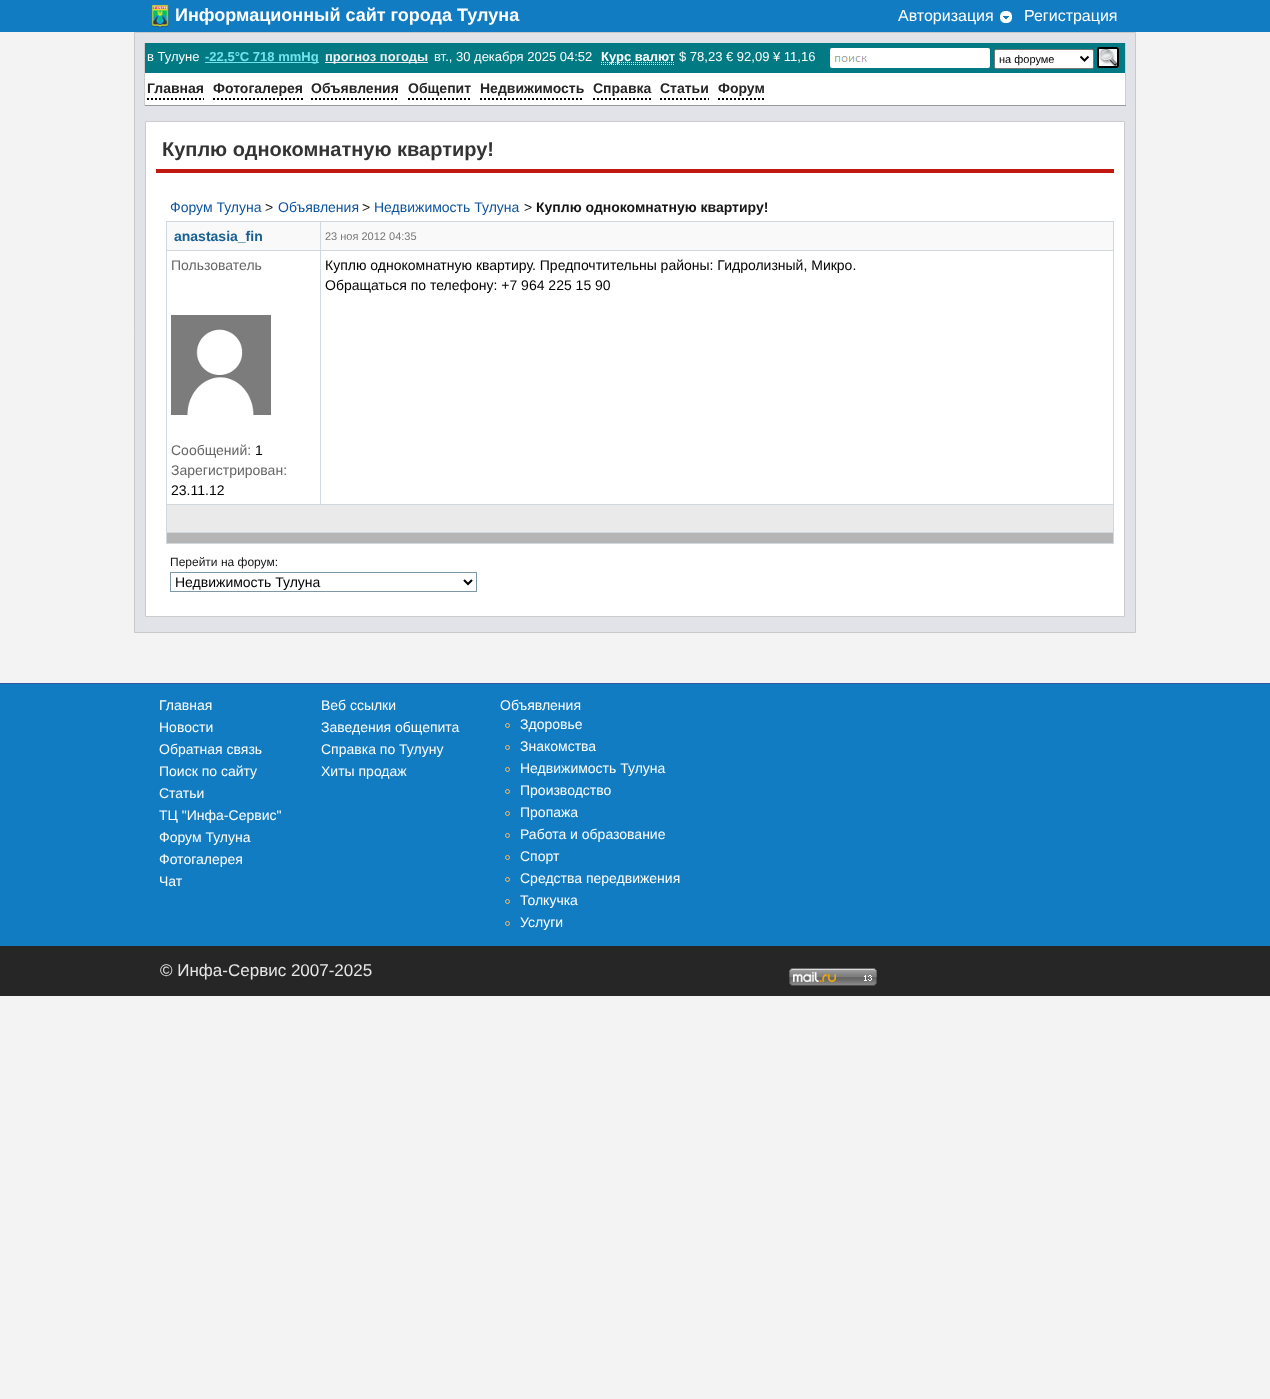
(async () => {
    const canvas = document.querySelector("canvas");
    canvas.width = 1270;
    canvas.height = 1399;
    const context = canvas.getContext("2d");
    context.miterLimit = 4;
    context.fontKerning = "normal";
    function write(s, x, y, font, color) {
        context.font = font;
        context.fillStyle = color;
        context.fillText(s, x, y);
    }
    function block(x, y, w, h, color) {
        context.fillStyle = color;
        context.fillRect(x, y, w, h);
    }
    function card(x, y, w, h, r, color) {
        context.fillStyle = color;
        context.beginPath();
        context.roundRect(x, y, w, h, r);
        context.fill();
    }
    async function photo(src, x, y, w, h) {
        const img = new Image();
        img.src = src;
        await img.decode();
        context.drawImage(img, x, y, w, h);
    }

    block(0, 0, 1270, 1399, "rgb(243, 243, 243)");
    block(0, 0, 1270, 32, "rgb(18, 124, 194)");
    await photo("media/1.png", 151, 4, 19, 24);
    write("Информационный сайт города Тулуна", 175, 21, "bold 18px Liberation Sans", "rgb(255, 255, 255)");
    write("Авторизация", 898, 21, "16px Liberation Sans", "rgb(255, 255, 255)");
    await photo("media/2.png", 1000, 11, 12, 12);
    write("Регистрация", 1024, 21, "16px Liberation Sans", "rgb(255, 255, 255)");
    context.fillStyle = "rgb(226, 226, 233)";
    context.beginPath();
    context.rect(134.5, 32.5, 1001, 600);
    context.fill();
    context.strokeStyle = "rgb(201, 201, 201)";
    context.stroke();
    block(145, 43, 980, 30, "rgb(2, 122, 132)");
    block(1125, 43, 1, 63, "rgb(204, 204, 204)");
    block(144, 43, 1, 30, "rgb(204, 204, 204)");
    write("в Тулуне", 147, 61, "13px Liberation Sans", "rgb(255, 255, 255)");
    block(205, 62, 114, 1, "rgb(114, 227, 237)");
    write("-22,5°C 718 mmHg", 205, 61, "bold 13px Liberation Sans", "rgb(114, 227, 237)");
    block(325, 62, 103, 1, "rgb(239, 239, 239)");
    write("прогноз погоды", 325, 61, "bold 13px Liberation Sans", "rgb(239, 239, 239)");
    write("вт., 30 декабря 2025 04:52", 434, 61, "13px Liberation Sans", "rgb(255, 255, 255)");
    context.beginPath();
    context.moveTo(601, 62.5);
    context.lineTo(675, 62.5);
    context.strokeStyle = "rgb(255, 255, 255)";
    context.setLineDash([1, 1]);
    context.stroke();
    write("Курс валют", 601, 61, "bold 13px Liberation Sans", "rgb(255, 255, 255)");
    context.beginPath();
    context.moveTo(601, 64.5);
    context.lineTo(675, 64.5);
    context.stroke();
    write("$ 78,23 € 92,09 ¥ 11,16", 679, 61, "13px Liberation Sans", "rgb(255, 255, 255)");
    card(830, 48, 160, 20, 2, "rgb(255, 255, 255)");
    await photo("media/3.png", 834, 56, 33, 6);
    context.beginPath();
    context.roundRect(994.5, 49.5, 99, 19, 1.5);
    context.fill();
    context.strokeStyle = "rgb(118, 118, 118)";
    context.setLineDash([]);
    context.stroke();
    context.beginPath();
    context.moveTo(1080.5, 56.5);
    context.lineTo(1084.5, 60.5);
    context.lineTo(1088.5, 56.5);
    context.strokeStyle = "rgb(0, 0, 0)";
    context.lineWidth = 2;
    context.stroke();
    write("на форуме", 999, 63, "11px Liberation Sans", "rgb(0, 0, 0)");
    await photo("media/4.png", 1098, 47, 21, 21);
    context.beginPath();
    context.roundRect(1098, 48, 20, 19, 1);
    context.stroke();
    block(144, 105, 982, 1, "rgb(153, 153, 153)");
    block(144, 73, 1, 33, "rgb(204, 204, 204)");
    block(145, 73, 980, 32, "rgb(255, 255, 255)");
    context.beginPath();
    context.moveTo(147, 99);
    context.lineTo(204, 99);
    context.setLineDash([2, 2]);
    context.stroke();
    write("Главная", 147, 93, "bold 14px Liberation Sans", "rgb(37, 37, 37)");
    context.beginPath();
    context.moveTo(213, 99);
    context.lineTo(303, 99);
    context.stroke();
    write("Фотогалерея", 213, 93, "bold 14px Liberation Sans", "rgb(37, 37, 37)");
    context.beginPath();
    context.moveTo(311, 99);
    context.lineTo(399, 99);
    context.stroke();
    write("Объявления", 311, 93, "bold 14px Liberation Sans", "rgb(37, 37, 37)");
    context.beginPath();
    context.moveTo(408, 99);
    context.lineTo(471, 99);
    context.stroke();
    write("Общепит", 408, 93, "bold 14px Liberation Sans", "rgb(37, 37, 37)");
    context.beginPath();
    context.moveTo(480, 99);
    context.lineTo(584, 99);
    context.stroke();
    write("Недвижимость", 480, 93, "bold 14px Liberation Sans", "rgb(37, 37, 37)");
    context.beginPath();
    context.moveTo(593, 99);
    context.lineTo(651, 99);
    context.stroke();
    write("Справка", 593, 93, "bold 14px Liberation Sans", "rgb(37, 37, 37)");
    context.beginPath();
    context.moveTo(660, 99);
    context.lineTo(709, 99);
    context.stroke();
    write("Статьи", 660, 93, "bold 14px Liberation Sans", "rgb(37, 37, 37)");
    context.beginPath();
    context.moveTo(718, 99);
    context.lineTo(764, 99);
    context.stroke();
    write("Форум", 718, 93, "bold 14px Liberation Sans", "rgb(37, 37, 37)");
    context.fillStyle = "rgb(255, 255, 255)";
    context.beginPath();
    context.rect(145.5, 121.5, 979, 495);
    context.fill();
    context.strokeStyle = "rgb(204, 204, 204)";
    context.lineWidth = 1;
    context.setLineDash([]);
    context.stroke();
    block(156, 169, 958, 4, "rgb(194, 24, 18)");
    write("Куплю однокомнатную квартиру!", 162, 156, "bold 20px Liberation Sans", "rgb(51, 51, 51)");
    write("Форум Тулуна", 170, 212, "14px Liberation Sans", "rgb(12, 82, 157)");
    write(">", 265, 212, "14px Liberation Sans", "rgb(21, 21, 21)");
    write("Объявления", 278, 212, "14px Liberation Sans", "rgb(12, 82, 157)");
    write(">", 362, 212, "14px Liberation Sans", "rgb(21, 21, 21)");
    write("Недвижимость Тулуна", 374, 212, "14px Liberation Sans", "rgb(12, 82, 157)");
    write(">", 524, 212, "14px Liberation Sans", "rgb(21, 21, 21)");
    write("Куплю однокомнатную квартиру!", 536, 212, "bold 14px Liberation Sans", "rgb(21, 21, 21)");
    block(166, 221, 948, 323, "rgb(209, 216, 221)");
    block(167, 222, 153, 28, "rgb(249, 249, 249)");
    write("anastasia_fin", 174, 241, "bold 14px Liberation Sans", "rgb(23, 96, 147)");
    block(321, 222, 792, 28, "rgb(249, 249, 249)");
    write("23 ноя 2012 04:35", 325, 240, "11px Liberation Sans", "rgb(119, 119, 119)");
    block(167, 251, 153, 253, "rgb(255, 255, 255)");
    write("Пользователь", 171, 270, "14px Liberation Sans", "rgb(102, 102, 102)");
    await photo("media/5.png", 171, 315, 100, 100);
    write("Сообщений:", 171, 455, "14px Liberation Sans", "rgb(102, 102, 102)");
    write("1", 255, 455, "14px Liberation Sans", "rgb(0, 0, 0)");
    write("Зарегистрирован:", 171, 475, "14px Liberation Sans", "rgb(102, 102, 102)");
    write("23.11.12", 171, 495, "14px Liberation Sans", "rgb(0, 0, 0)");
    block(321, 251, 792, 253, "rgb(255, 255, 255)");
    write("Куплю однокомнатную квартиру. Предпочтительны районы: Гидролизный, Микро.", 325, 270, "14px Liberation Sans", "rgb(0, 0, 0)");
    write("Обращаться по телефону: +7 964 225 15 90", 325, 290, "14px Liberation Sans", "rgb(0, 0, 0)");
    block(167, 505, 946, 27, "rgb(234, 234, 234)");
    block(167, 533, 946, 10, "rgb(181, 181, 181)");
    write("Перейти на форум:", 170, 566, "12px Liberation Sans", "rgb(21, 21, 21)");
    context.strokeStyle = "rgb(127, 152, 167)";
    context.strokeRect(170.5, 572.5, 306, 19);
    context.beginPath();
    context.moveTo(464, 580);
    context.lineTo(468, 584);
    context.lineTo(472, 580);
    context.strokeStyle = "rgb(0, 0, 0)";
    context.lineWidth = 2;
    context.stroke();
    write("Недвижимость Тулуна", 175, 587, "14px Liberation Sans", "rgb(0, 0, 0)");
    block(0, 684, 1270, 262, "rgb(18, 124, 194)");
    block(0, 683, 1270, 1, "rgb(45, 89, 156)");
    write("Главная", 159, 710, "14px Liberation Sans", "rgb(255, 255, 255)");
    write("Новости", 159, 732, "14px Liberation Sans", "rgb(255, 255, 255)");
    write("Обратная связь", 159, 754, "14px Liberation Sans", "rgb(255, 255, 255)");
    write("Поиск по сайту", 159, 776, "14px Liberation Sans", "rgb(255, 255, 255)");
    write("Статьи", 159, 798, "14px Liberation Sans", "rgb(255, 255, 255)");
    write("ТЦ \"Инфа-Сервис\"", 159, 820, "14px Liberation Sans", "rgb(255, 255, 255)");
    write("Форум Тулуна", 159, 842, "14px Liberation Sans", "rgb(255, 255, 255)");
    write("Фотогалерея", 159, 864, "14px Liberation Sans", "rgb(255, 255, 255)");
    write("Чат", 159, 886, "14px Liberation Sans", "rgb(255, 255, 255)");
    write("Веб ссылки", 321, 710, "14px Liberation Sans", "rgb(255, 255, 255)");
    write("Заведения общепита", 321, 732, "14px Liberation Sans", "rgb(255, 255, 255)");
    write("Справка по Тулуну", 321, 754, "14px Liberation Sans", "rgb(255, 255, 255)");
    write("Хиты продаж", 321, 776, "14px Liberation Sans", "rgb(255, 255, 255)");
    write("Объявления", 500, 710, "14px Liberation Sans", "rgb(255, 255, 255)");
    context.beginPath();
    context.arc(507.5, 725.5, 2, 0, Math.PI * 2);
    context.strokeStyle = "rgb(249, 188, 109)";
    context.lineWidth = 1;
    context.stroke();
    write("Здоровье", 520, 729, "14px Liberation Sans", "rgb(255, 255, 255)");
    context.beginPath();
    context.arc(507.5, 747.5, 2, 0, Math.PI * 2);
    context.stroke();
    write("Знакомства", 520, 751, "14px Liberation Sans", "rgb(255, 255, 255)");
    context.beginPath();
    context.arc(507.5, 769.5, 2, 0, Math.PI * 2);
    context.stroke();
    write("Недвижимость Тулуна", 520, 773, "14px Liberation Sans", "rgb(255, 255, 255)");
    context.beginPath();
    context.arc(507.5, 791.5, 2, 0, Math.PI * 2);
    context.stroke();
    write("Производство", 520, 795, "14px Liberation Sans", "rgb(255, 255, 255)");
    context.beginPath();
    context.arc(507.5, 813.5, 2, 0, Math.PI * 2);
    context.stroke();
    write("Пропажа", 520, 817, "14px Liberation Sans", "rgb(255, 255, 255)");
    context.beginPath();
    context.arc(507.5, 835.5, 2, 0, Math.PI * 2);
    context.stroke();
    write("Работа и образование", 520, 839, "14px Liberation Sans", "rgb(255, 255, 255)");
    context.beginPath();
    context.arc(507.5, 857.5, 2, 0, Math.PI * 2);
    context.stroke();
    write("Спорт", 520, 861, "14px Liberation Sans", "rgb(255, 255, 255)");
    context.beginPath();
    context.arc(507.5, 879.5, 2, 0, Math.PI * 2);
    context.stroke();
    write("Средства передвижения", 520, 883, "14px Liberation Sans", "rgb(255, 255, 255)");
    context.beginPath();
    context.arc(507.5, 901.5, 2, 0, Math.PI * 2);
    context.stroke();
    write("Толкучка", 520, 905, "14px Liberation Sans", "rgb(255, 255, 255)");
    context.beginPath();
    context.arc(507.5, 923.5, 2, 0, Math.PI * 2);
    context.stroke();
    write("Услуги", 520, 927, "14px Liberation Sans", "rgb(255, 255, 255)");
    block(0, 946, 1270, 50, "rgb(38, 38, 38)");
    write("© Инфа-Сервис 2007-2025", 160, 976, "17px Liberation Sans", "rgb(230, 230, 230)");
    await photo("media/6.png", 789, 968, 88, 18);
})();
